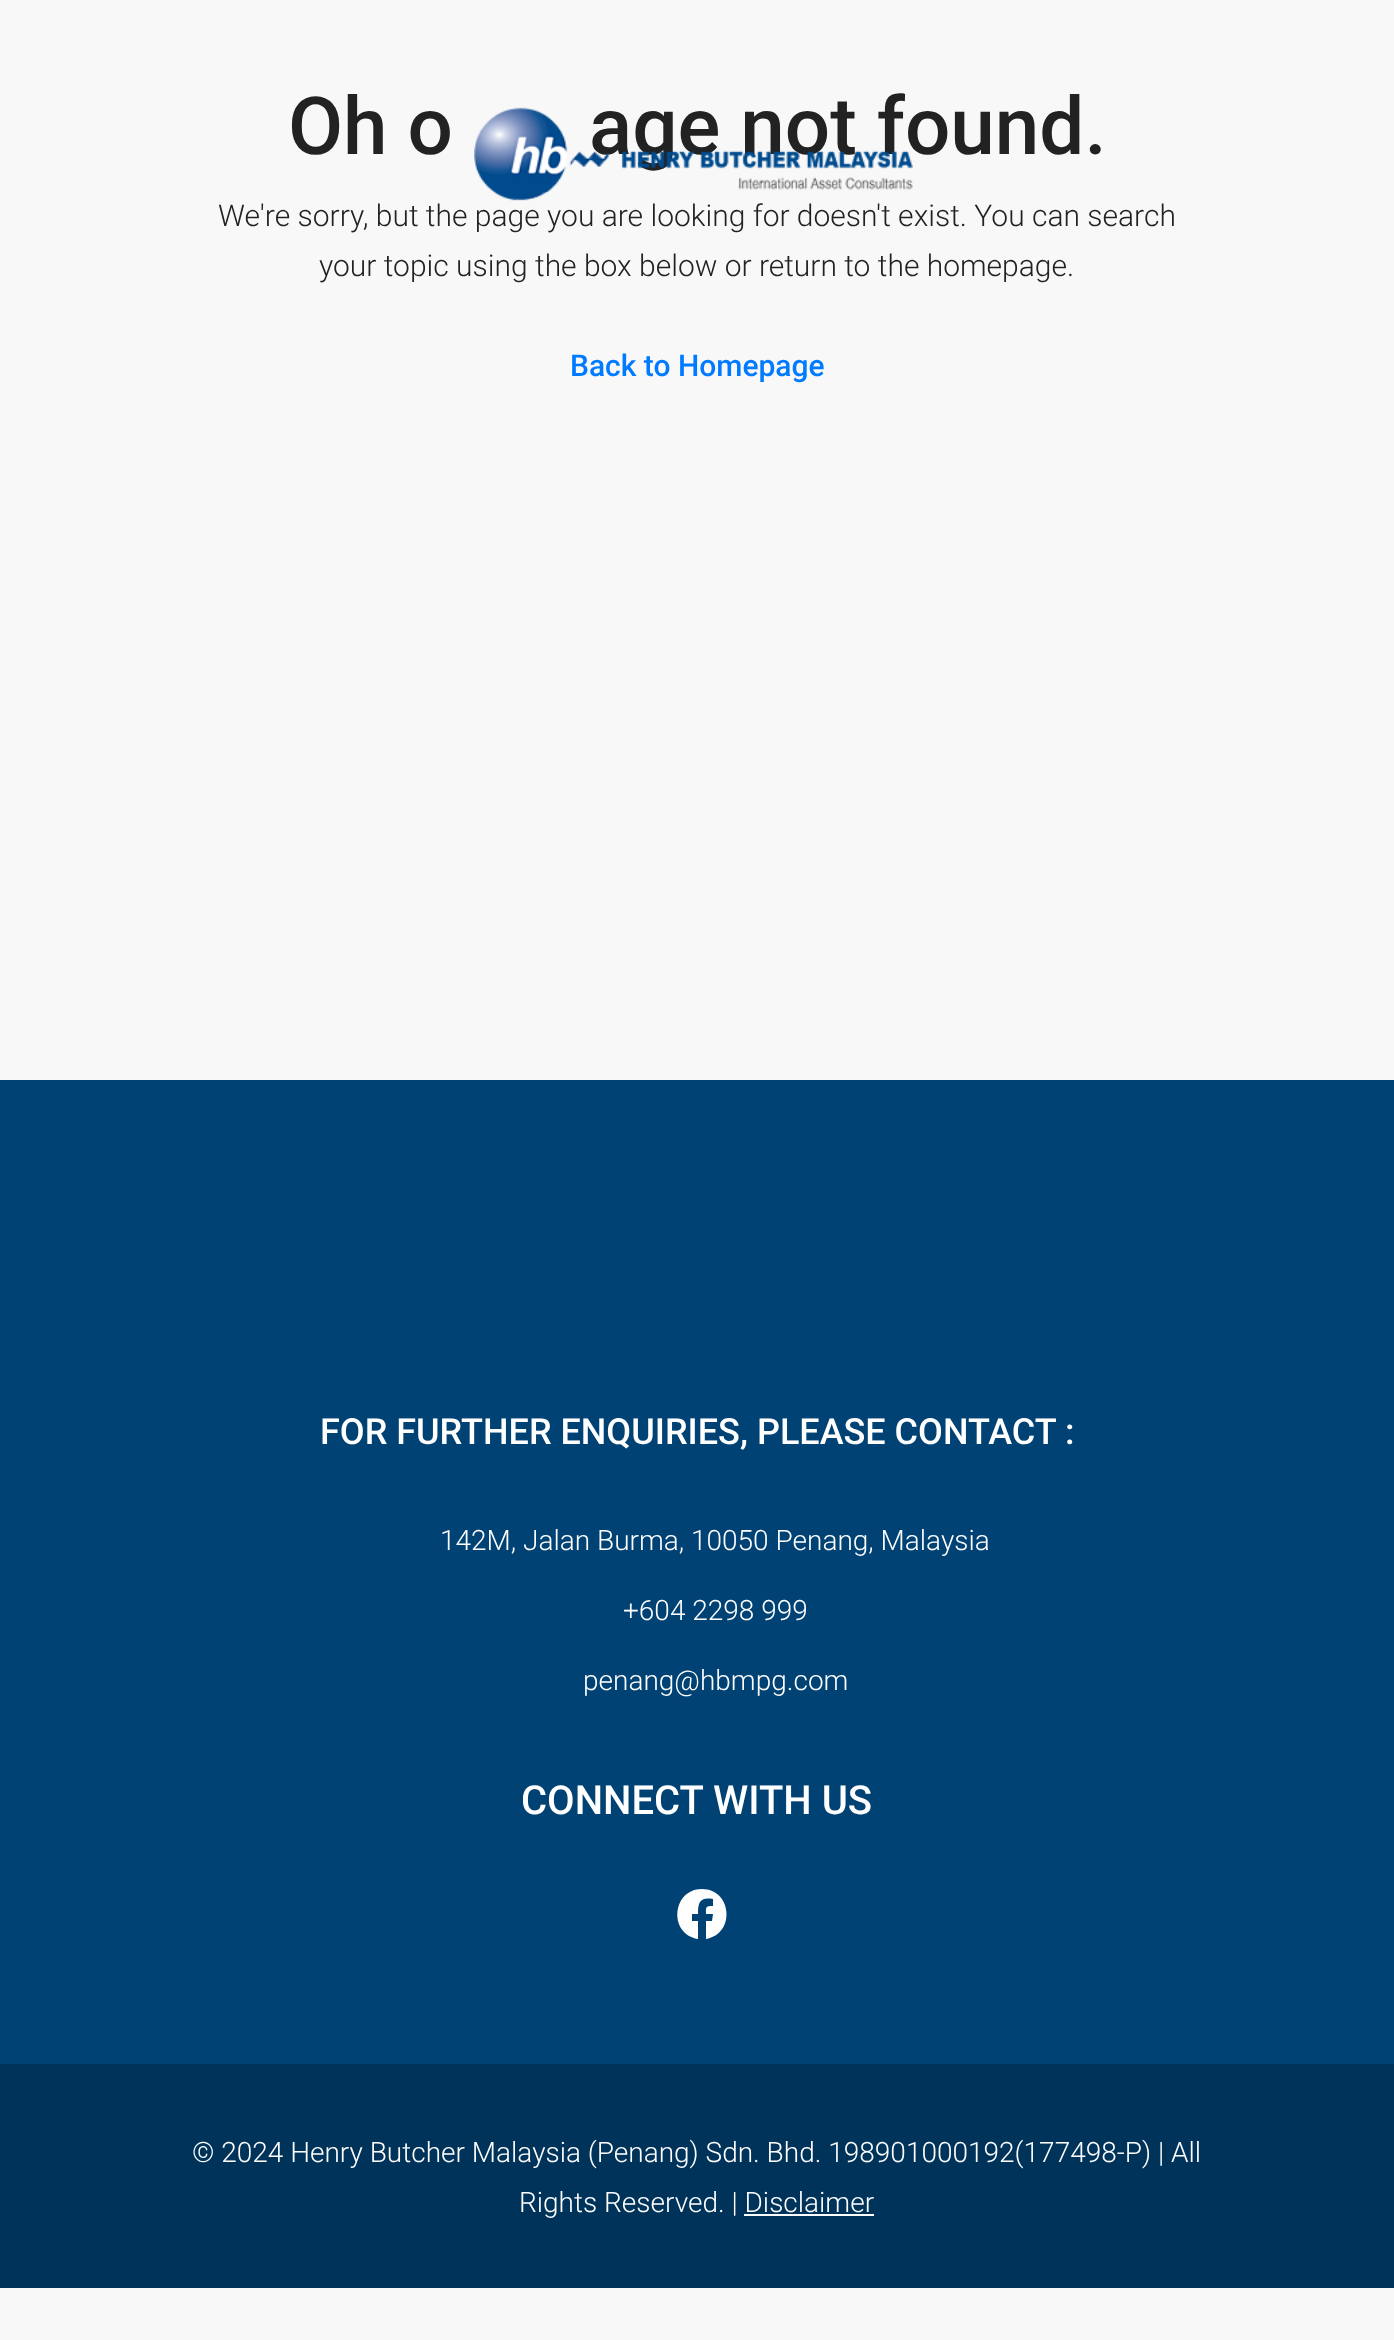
(async () => {
    const canvas = document.querySelector("canvas");
    canvas.width = 1394;
    canvas.height = 2340;
    const context = canvas.getContext("2d");
    context.miterLimit = 4;
    context.fontKerning = "normal";
    function write(s, x, y, font, color) {
        context.font = font;
        context.fillStyle = color;
        context.fillText(s, x, y);
    }
    function block(x, y, w, h, color) {
        context.fillStyle = color;
        context.fillRect(x, y, w, h);
    }
    async function photo(src, x, y, w, h) {
        const img = new Image();
        img.src = src;
        await img.decode();
        context.drawImage(img, x, y, w, h);
    }

    block(0, 0, 1394, 2340, "rgb(248, 248, 248)");
    write("Oh o", 288, 154, "500 80px Roboto", "rgb(34, 34, 34)");
    write("age not found.", 589, 154, "500 80px Roboto", "rgb(34, 34, 34)");
    write("We're sorry, but the page you are looking for doesn't exist. You can search", 218, 226, "300 30px Roboto", "rgb(34, 34, 34)");
    write("your topic using the box below or return to the homepage.", 319, 276, "300 30px Roboto", "rgb(34, 34, 34)");
    write("Back to Homepage", 570, 376, "500 30px Roboto", "rgb(0, 123, 255)");
    await photo("media/1.png", 474, 107, 439, 94);
    block(0, 1080, 1394, 984, "rgb(0, 66, 116)");
    write("FOR FURTHER ENQUIRIES, PLEASE CONTACT :", 320, 1444, "500 36px Roboto", "rgb(255, 255, 255)");
    write("142M, Jalan Burma, 10050 Penang, Malaysia", 440, 1550, "300 28px Roboto", "rgb(255, 255, 255)");
    write("+604 2298 999", 623, 1620, "300 28px Roboto", "rgb(255, 255, 255)");
    write("penang@hbmpg.com", 583, 1690, "300 28px Roboto", "rgb(255, 255, 255)");
    write("CONNECT WITH US", 521, 1814, "500 40px Roboto", "rgb(255, 255, 255)");
    context.beginPath();
    context.moveTo(702, 1889);
    context.bezierCurveTo(672, 1889, 668, 1934, 698, 1939);
    context.lineTo(698, 1921);
    context.lineTo(692, 1921);
    context.lineTo(692, 1914);
    context.lineTo(698, 1914);
    context.bezierCurveTo(698, 1902, 700, 1897, 713, 1899);
    context.lineTo(713, 1906);
    context.bezierCurveTo(705, 1906, 706, 1907, 706, 1914);
    context.lineTo(713, 1914);
    context.lineTo(712, 1921);
    context.lineTo(706, 1921);
    context.lineTo(706, 1939);
    context.bezierCurveTo(736, 1934, 732, 1889, 702, 1889);
    context.closePath();
    context.fill();
    block(0, 2064, 1394, 224, "rgb(0, 51, 90)");
    write("© 2024 Henry Butcher Malaysia (Penang) Sdn. Bhd. 198901000192(177498-P) | All", 192, 2162, "300 28px Roboto", "rgb(255, 255, 255)");
    write("Rights Reserved. | Disclaimer", 519, 2212, "300 28px Roboto", "rgb(255, 255, 255)");
    block(744, 2214, 130, 2, "rgb(255, 255, 255)");
})();
